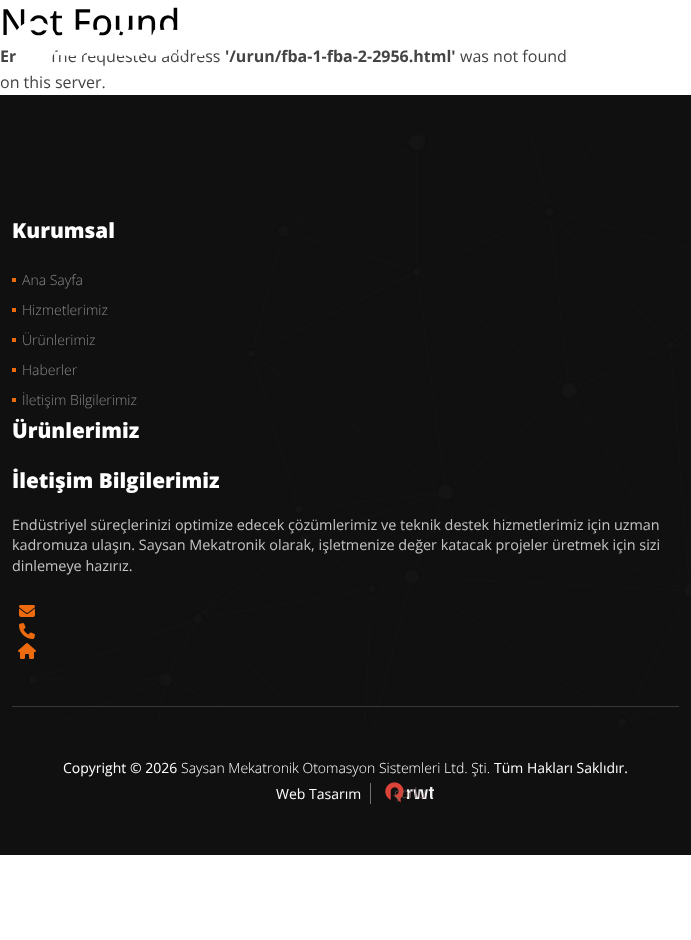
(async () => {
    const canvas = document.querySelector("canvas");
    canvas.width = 691;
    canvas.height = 940;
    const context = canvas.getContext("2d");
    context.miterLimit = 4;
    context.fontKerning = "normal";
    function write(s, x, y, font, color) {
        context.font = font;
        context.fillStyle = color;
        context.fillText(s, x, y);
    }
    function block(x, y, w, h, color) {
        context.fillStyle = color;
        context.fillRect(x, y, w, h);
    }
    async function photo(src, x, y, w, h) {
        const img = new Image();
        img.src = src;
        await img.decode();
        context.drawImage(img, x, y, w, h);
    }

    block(0, 0, 691, 940, "rgb(255, 255, 255)");
    write("Not Found", 0, 35, "500 36px Open Sans", "rgb(0, 0, 0)");
    write("Er", 0, 62, "bold 16px Open Sans", "rgb(68, 68, 68)");
    write("The requested address", 49, 62, "16px Open Sans", "rgb(68, 68, 68)");
    await photo("media/1.png", 15, 20, 189, 43);
    write("'/urun/fba-1-fba-2-2956.html'", 225, 62, "bold 16px Open Sans", "rgb(68, 68, 68)");
    write("was not found", 460, 62, "16px Open Sans", "rgb(68, 68, 68)");
    write("on this server.", 0, 88, "16px Open Sans", "rgb(68, 68, 68)");
    block(0, 95, 691, 760, "rgb(16, 16, 16)");
    write("Kurumsal", 12, 238, "800 20.75px Open Sans", "rgb(255, 255, 255)");
    write("Ürünlerimiz", 12, 438, "800 20.75px Open Sans", "rgb(255, 255, 255)");
    write("İletişim Bilgilerimiz", 12, 488, "800 20.75px Open Sans", "rgb(255, 255, 255)");
    write("Endüstriyel süreçlerinizi optimize edecek çözümlerimiz ve teknik destek hizmetlerimiz için uzman", 12, 530, "14.4px Open Sans", "rgb(195, 195, 195)");
    write("kadromuza ulaşın. Saysan Mekatronik olarak, işletmenize değer katacak projeler üretmek için sizi", 12, 550, "14.4px Open Sans", "rgb(195, 195, 195)");
    write("dinlemeye hazırız.", 12, 571, "14.4px Open Sans", "rgb(195, 195, 195)");
    await photo("media/2.png", 30, 135, 661, 590);
    block(12, 278, 4, 4, "rgb(237, 106, 14)");
    write("Ana Sayfa", 22, 285, "300 14px Open Sans", "rgb(136, 136, 136)");
    block(12, 308, 4, 4, "rgb(237, 106, 14)");
    write("Hizmetlerimiz", 22, 315, "300 14px Open Sans", "rgb(136, 136, 136)");
    block(12, 338, 4, 4, "rgb(237, 106, 14)");
    write("Ürünlerimiz", 22, 345, "300 14px Open Sans", "rgb(136, 136, 136)");
    block(12, 368, 4, 4, "rgb(237, 106, 14)");
    write("Haberler", 22, 375, "300 14px Open Sans", "rgb(136, 136, 136)");
    block(12, 398, 4, 4, "rgb(237, 106, 14)");
    write("İletişim Bilgilerimiz", 22, 405, "300 14px Open Sans", "rgb(136, 136, 136)");
    await photo("media/3.png", 19, 605, 16, 12);
    await photo("media/4.png", 19, 623, 16, 16);
    await photo("media/5.png", 18, 643, 18, 16);
    block(12, 706, 667, 1, "rgb(56, 56, 56)");
    write("Copyright © 2026", 63, 773, "14px Open Sans", "rgb(255, 255, 255)");
    write("Saysan Mekatronik Otomasyon Sistemleri Ltd. Şti.", 181, 773, "300 14px Open Sans", "rgb(255, 255, 255)");
    write("Tüm Hakları Saklıdır.", 494, 773, "14px Open Sans", "rgb(255, 255, 255)");
    write("Web Tasarım", 276, 799, "14px Open Sans", "rgb(255, 255, 255)");
    block(370, 783, 1, 21, "rgb(112, 112, 112)");
    await photo("media/6.png", 385, 782, 49, 21);
    write("çorlu", 394, 798, "300 14px Open Sans", "rgb(126, 97, 95)");
})();
